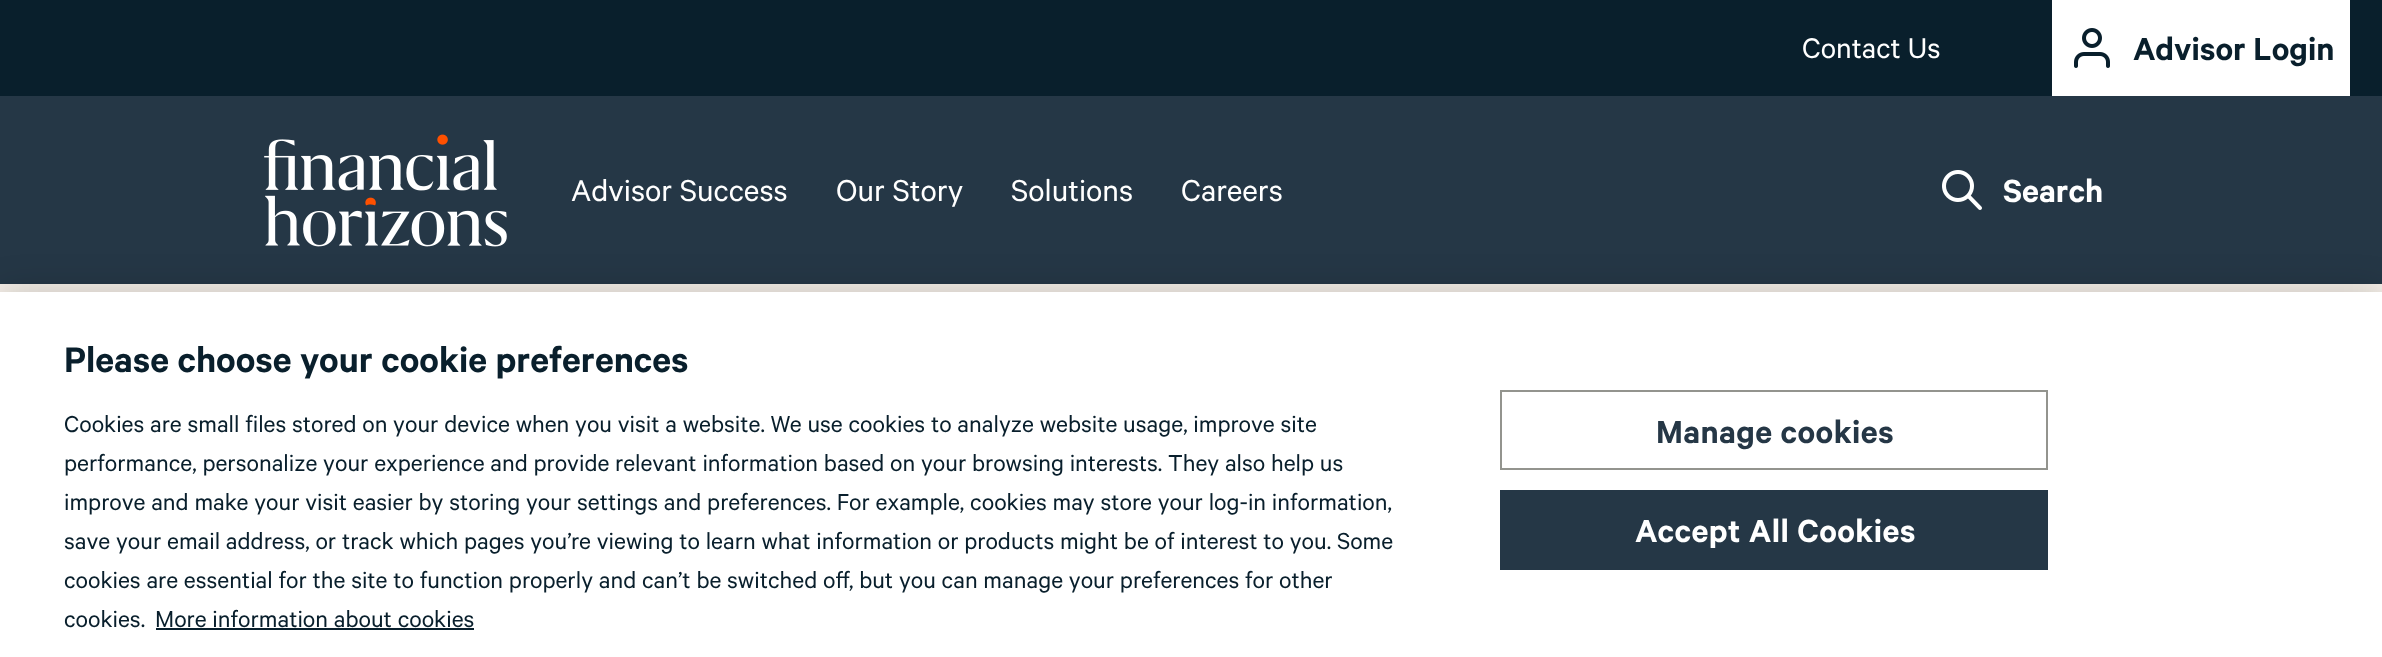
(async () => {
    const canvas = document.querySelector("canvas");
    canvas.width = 2382;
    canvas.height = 657;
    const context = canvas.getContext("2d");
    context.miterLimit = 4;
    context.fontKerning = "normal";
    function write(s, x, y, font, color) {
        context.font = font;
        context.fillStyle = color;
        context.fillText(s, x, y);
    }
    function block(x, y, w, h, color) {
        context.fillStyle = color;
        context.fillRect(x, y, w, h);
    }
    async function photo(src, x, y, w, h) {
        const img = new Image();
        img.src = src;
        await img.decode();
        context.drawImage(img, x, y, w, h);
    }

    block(0, 0, 2382, 657, "rgb(245, 239, 232)");
    block(0, 96, 2382, 188, "rgb(37, 55, 70)");
    block(0, 0, 2382, 96, "rgb(9, 31, 44)");
    write("Contact Us", 1802, 58, "32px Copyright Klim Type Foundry", "rgb(255, 255, 255)");
    block(2052, 0, 298, 96, "rgb(255, 255, 255)");
    await photo("media/1.png", 2074, 28, 36, 40);
    write("Advisor Login", 2133, 60, "600 36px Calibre", "rgb(9, 31, 44)");
    await photo("media/2.png", 264, 134, 243, 113);
    write("Advisor Success", 571, 201, "34px Copyright Klim Type Foundry", "rgb(255, 255, 255)");
    write("Our Story", 836, 201, "34px Copyright Klim Type Foundry", "rgb(255, 255, 255)");
    write("Solutions", 1011, 201, "34px Copyright Klim Type Foundry", "rgb(255, 255, 255)");
    write("Careers", 1181, 201, "34px Copyright Klim Type Foundry", "rgb(255, 255, 255)");
    await photo("media/3.png", 1942, 170, 40, 40);
    write("Search", 2003, 202, "600 36px Calibre", "rgb(255, 255, 255)");
    context.fillStyle = "rgba(0, 0, 0, 0.2)";
    context.filter = "blur(18px)";
    context.beginPath();
    context.rect(0, 292, 2382, 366);
    context.fill();
    context.filter = "none";
    block(0, 292, 2382, 365, "rgb(255, 255, 255)");
    write("Please choose your cookie preferences", 64, 372, "600 40px Calibre", "rgb(9, 31, 44)");
    write("Cookies are small files stored on your device when you visit a website. We use cookies to analyze website usage, improve site", 64, 432, "26.02px Copyright Klim Type Foundry", "rgb(9, 31, 44)");
    write("performance, personalize your experience and provide relevant information based on your browsing interests. They also help us", 64, 471, "26.02px Copyright Klim Type Foundry", "rgb(9, 31, 44)");
    write("improve and make your visit easier by storing your settings and preferences. For example, cookies may store your log-in information,", 64, 510, "26.02px Copyright Klim Type Foundry", "rgb(9, 31, 44)");
    write("save your email address, or track which pages you’re viewing to learn what information or products might be of interest to you. Some", 64, 549, "26.02px Copyright Klim Type Foundry", "rgb(9, 31, 44)");
    write("cookies are essential for the site to function properly and can’t be switched off, but you can manage your preferences for other", 64, 588, "26.02px Copyright Klim Type Foundry", "rgb(9, 31, 44)");
    write("cookies.", 64, 627, "26.02px Copyright Klim Type Foundry", "rgb(9, 31, 44)");
    write("More information about cookies", 155, 627, "26.02px Copyright Klim Type Foundry", "rgb(9, 31, 44)");
    block(156, 628, 318, 2, "rgb(9, 31, 44)");
    context.strokeStyle = "rgb(147, 148, 142)";
    context.lineWidth = 2;
    context.strokeRect(1501, 391, 546, 78);
    context.letterSpacing = "0.4px";
    write("Manage cookies", 1656, 443, "600 36px Calibre", "rgb(37, 55, 70)");
    block(1500, 490, 548, 80, "rgb(37, 55, 70)");
    write("Accept All Cookies", 1635, 542, "600 36px Calibre", "rgb(255, 255, 255)");
})();
